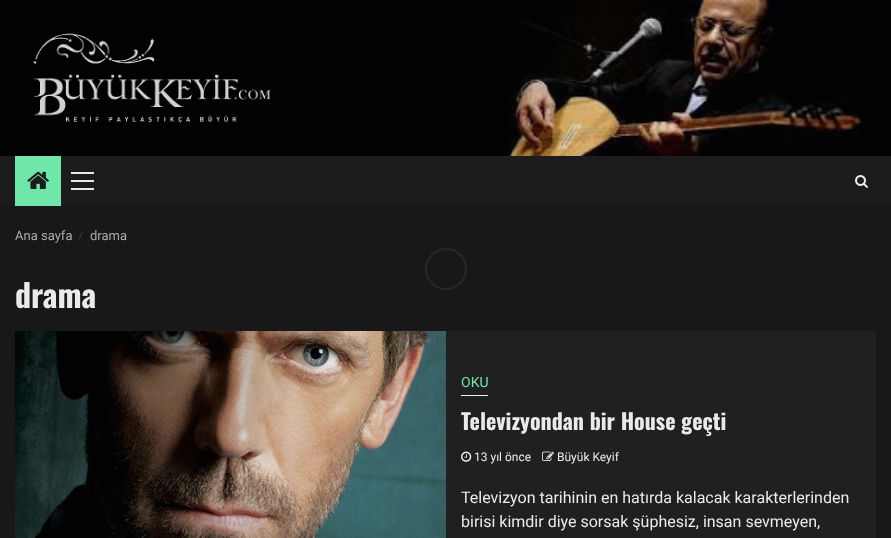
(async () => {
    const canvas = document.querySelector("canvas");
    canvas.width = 891;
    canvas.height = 538;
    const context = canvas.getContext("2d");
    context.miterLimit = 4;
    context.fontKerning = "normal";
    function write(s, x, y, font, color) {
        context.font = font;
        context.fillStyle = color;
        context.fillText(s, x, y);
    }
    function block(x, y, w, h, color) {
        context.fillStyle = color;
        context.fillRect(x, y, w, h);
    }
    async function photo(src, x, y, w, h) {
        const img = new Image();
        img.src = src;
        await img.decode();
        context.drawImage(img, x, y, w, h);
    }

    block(0, 0, 891, 538, "rgb(24, 24, 24)");
    block(0, 0, 891, 156, "rgb(2, 2, 2)");
    await photo("media/1.png", 484, 0, 378, 156);
    await photo("media/2.png", 33, 33, 238, 90);
    block(0, 156, 891, 50, "rgb(28, 28, 28)");
    block(15, 156, 46, 50, "rgb(111, 231, 169)");
    await photo("media/3.png", 27, 171, 22, 18);
    block(71, 180, 23, 2, "rgb(234, 234, 234)");
    block(71, 172, 23, 2, "rgb(234, 234, 234)");
    block(71, 188, 23, 2, "rgb(234, 234, 234)");
    await photo("media/4.png", 855, 175, 13, 13);
    write("Ana sayfa", 15, 240, "13px Roboto", "rgb(171, 171, 171)");
    write("/", 78, 240, "13px Roboto", "rgb(54, 59, 66)");
    write("drama", 90, 240, "13px Roboto", "rgb(171, 171, 171)");
    write("drama", 15, 308, "bold 32px Oswald", "rgb(234, 234, 234)");
    block(446, 331, 430, 207, "rgb(32, 32, 32)");
    await photo("media/5.png", 15, 331, 431, 207);
    block(461, 395, 27, 1, "rgb(234, 234, 234)");
    write("OKU", 461, 387, "14px Roboto", "rgb(111, 231, 169)");
    write("Televizyondan bir House geçti", 461, 430, "bold 22px Oswald", "rgb(234, 234, 234)");
    await photo("media/6.png", 461, 451, 11, 11);
    write("13 yıl önce", 474, 461, "12px Roboto", "rgb(234, 234, 234)");
    await photo("media/7.png", 542, 451, 12, 10);
    write("Büyük Keyif", 557, 461, "12px Roboto", "rgb(234, 234, 234)");
    write("Televizyon tarihinin en hatırda kalacak karakterlerinden", 461, 503, "16px Roboto", "rgb(234, 234, 234)");
    write("birisi kimdir diye sorsak şüphesiz, insan sevmeyen,", 461, 527, "16px Roboto", "rgb(234, 234, 234)");
    context.beginPath();
    context.arc(446, 269, 20, 0, Math.PI * 2);
    context.strokeStyle = "rgb(33, 45, 39)";
    context.lineWidth = 2;
    context.stroke();
})();
